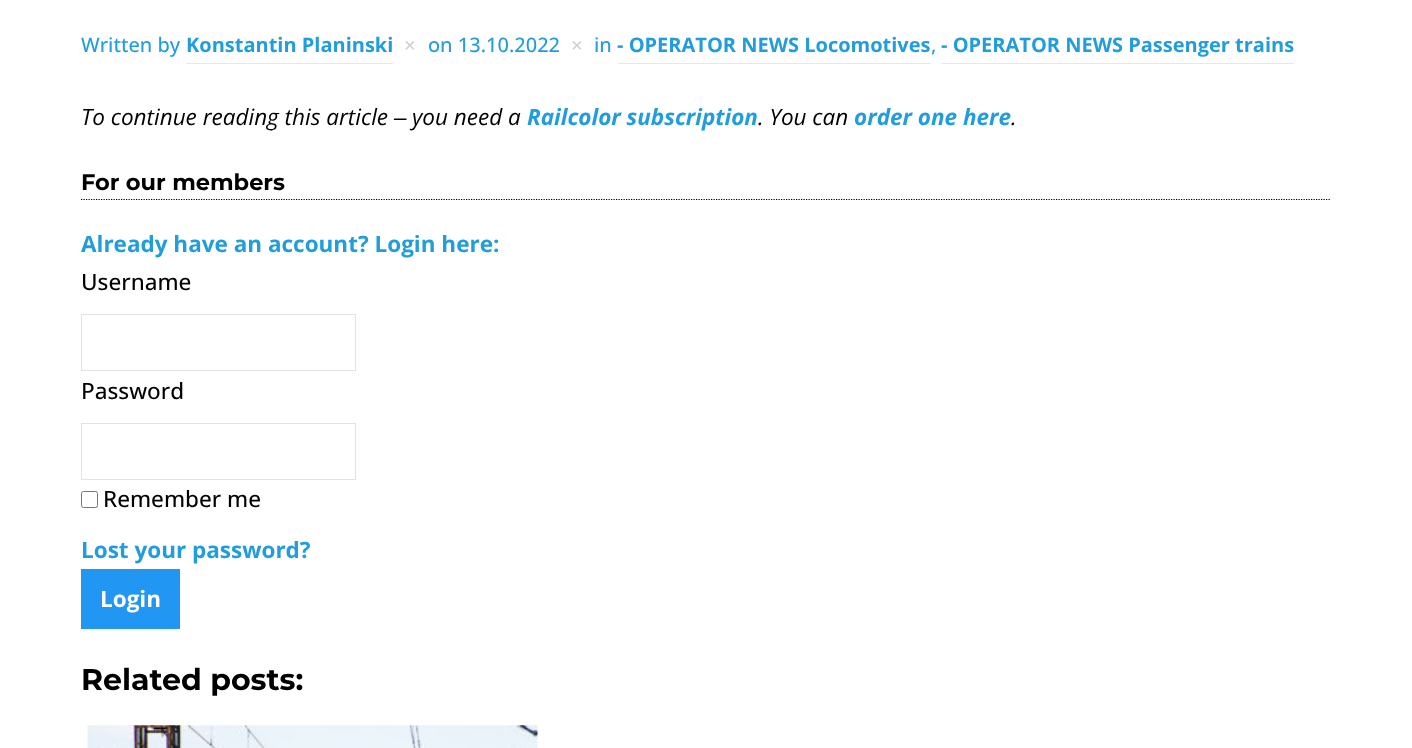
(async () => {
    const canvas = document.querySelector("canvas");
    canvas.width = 1412;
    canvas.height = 748;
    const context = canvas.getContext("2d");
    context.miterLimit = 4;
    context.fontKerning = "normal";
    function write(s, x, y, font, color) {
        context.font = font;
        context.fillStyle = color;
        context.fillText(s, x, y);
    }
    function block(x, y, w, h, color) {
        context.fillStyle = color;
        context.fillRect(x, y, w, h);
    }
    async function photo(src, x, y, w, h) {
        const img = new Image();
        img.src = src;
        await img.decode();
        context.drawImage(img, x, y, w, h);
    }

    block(0, 0, 1412, 748, "rgb(255, 255, 255)");
    write("Written by", 81, 52, "500 20px Open Sans", "rgb(34, 157, 220)");
    write("Konstantin Planinski", 186, 52, "bold 20px Open Sans", "rgb(34, 157, 220)");
    block(186, 63, 207, 1, "rgb(232, 232, 232)");
    write("×", 404, 52, "20px Liberation Sans", "rgb(204, 207, 207)");
    write("on 13.10.2022", 428, 52, "500 20px Open Sans", "rgb(34, 157, 220)");
    write("×", 571, 52, "20px Liberation Sans", "rgb(204, 207, 207)");
    write("in", 594, 52, "500 20px Open Sans", "rgb(34, 157, 220)");
    write("- OPERATOR NEWS Locomotives", 617, 52, "bold 20px Open Sans", "rgb(34, 157, 220)");
    write("- OPERATOR NEWS Passenger trains", 941, 52, "bold 20px Open Sans", "rgb(34, 157, 220)");
    write(",", 931, 52, "500 20px Open Sans", "rgb(34, 157, 220)");
    block(618, 63, 313, 1, "rgb(232, 232, 232)");
    block(941, 63, 353, 1, "rgb(232, 232, 232)");
    write("To continue reading this article", 81, 125, "italic 22.5px Open Sans", "rgb(0, 0, 0)");
    write("–", 394, 125, "italic 22.5px Liberation Sans", "rgb(0, 0, 0)");
    write("you need a", 412, 125, "italic 22.5px Open Sans", "rgb(0, 0, 0)");
    write("Railcolor subscription", 527, 125, "italic bold 22.5px Open Sans", "rgb(34, 157, 220)");
    write(". You can", 758, 125, "italic 22.5px Open Sans", "rgb(0, 0, 0)");
    write("order one here", 854, 125, "italic bold 22.5px Open Sans", "rgb(34, 157, 220)");
    write(".", 1011, 125, "italic 22.5px Open Sans", "rgb(0, 0, 0)");
    context.beginPath();
    context.moveTo(81, 199.5);
    context.lineTo(1331, 199.5);
    context.strokeStyle = "rgb(0, 0, 0)";
    context.lineWidth = 1.2;
    context.setLineDash([1.25, 1.25]);
    context.stroke();
    write("For our members", 81, 190, "bold 22.5px Montserrat", "rgb(0, 0, 0)");
    write("Already have an account? Login here:", 81, 252, "bold 22.5px Open Sans", "rgb(34, 157, 220)");
    write("Username", 81, 290, "500 22.5px Open Sans", "rgb(0, 0, 0)");
    context.strokeStyle = "rgb(226, 226, 226)";
    context.lineWidth = 1;
    context.setLineDash([]);
    context.strokeRect(81.5, 314.5, 274, 56);
    write("Password", 81, 399, "500 22.5px Open Sans", "rgb(0, 0, 0)");
    context.strokeRect(81.5, 423.5, 274, 56);
    context.beginPath();
    context.roundRect(81.5, 491.5, 16, 16, 2);
    context.strokeStyle = "rgb(118, 118, 118)";
    context.stroke();
    write("Remember me", 103, 507, "500 22.5px Open Sans", "rgb(0, 0, 0)");
    write("Lost your password?", 81, 558, "bold 22.5px Open Sans", "rgb(34, 157, 220)");
    block(81, 569, 99, 60, "rgb(33, 150, 243)");
    write("Login", 100, 607, "bold 22.5px Open Sans", "rgb(255, 255, 255)");
    write("Related posts:", 81, 690, "bold 30px Montserrat", "rgb(0, 0, 0)");
    await photo("media/1.png", 87, 725, 451, 23);
})();
